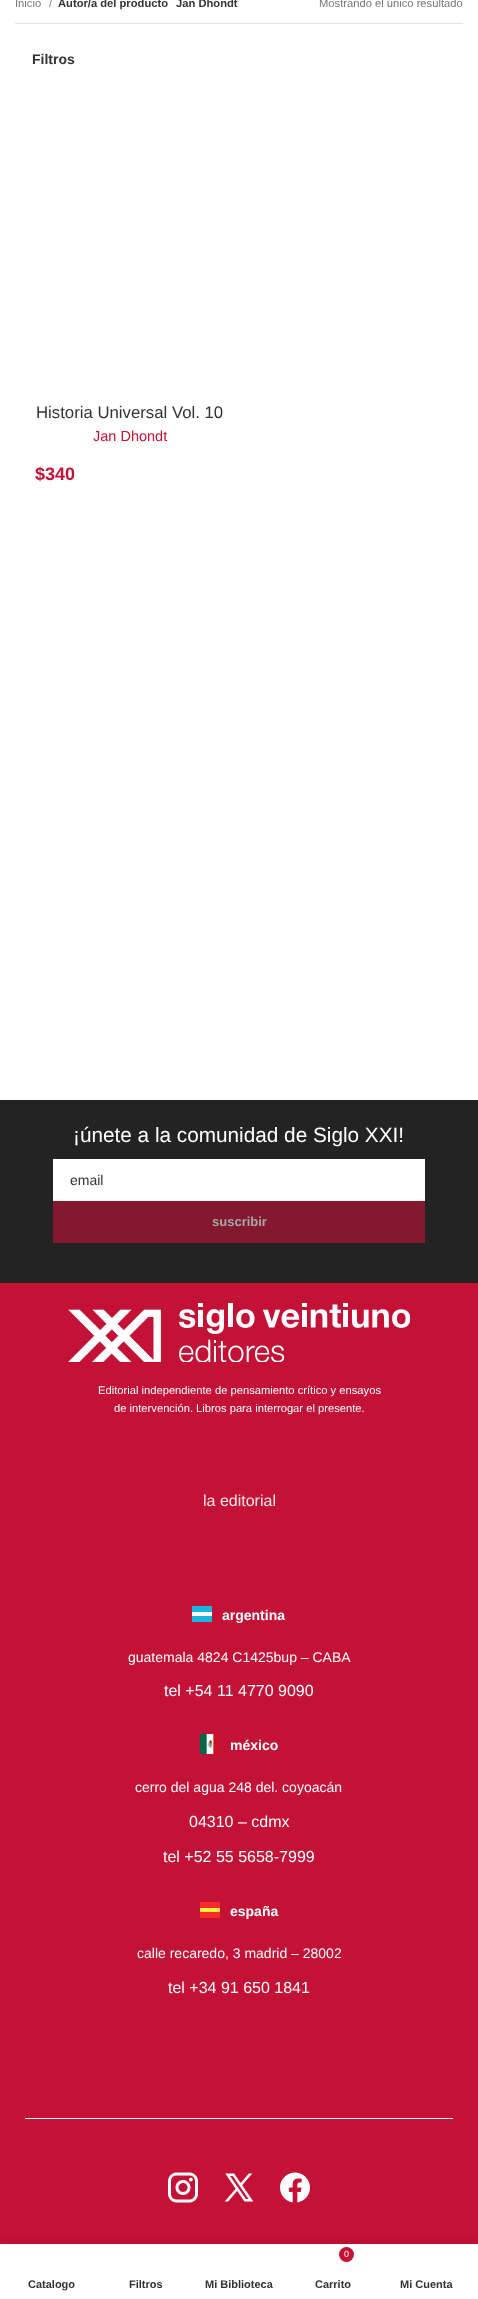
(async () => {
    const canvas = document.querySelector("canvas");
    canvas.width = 478;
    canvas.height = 2299;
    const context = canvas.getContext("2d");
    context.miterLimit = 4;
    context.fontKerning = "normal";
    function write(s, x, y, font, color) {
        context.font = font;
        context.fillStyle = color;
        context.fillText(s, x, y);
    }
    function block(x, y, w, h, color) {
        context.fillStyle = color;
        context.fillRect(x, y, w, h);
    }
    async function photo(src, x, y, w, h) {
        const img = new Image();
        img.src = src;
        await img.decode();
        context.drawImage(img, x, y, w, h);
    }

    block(0, 0, 478, 2299, "rgb(255, 255, 255)");
    block(15, 23, 448, 1, "rgb(228, 228, 228)");
    write("Inicio", 15, 7, "11.2px Liberation Sans", "rgb(119, 119, 119)");
    write("/", 49, 7, "11.2px Liberation Sans", "rgb(119, 119, 119)");
    write("Autor/a del producto", 58, 7, "bold 11.2px Liberation Sans", "rgb(51, 51, 51)");
    write("Jan Dhondt", 176, 7, "bold 11.2px Liberation Sans", "rgb(51, 51, 51)");
    write("Mostrando el único resultado", 319, 7, "11.2px Liberation Sans", "rgb(119, 119, 119)");
    write("Filtros", 32, 64, "bold 14px Liberation Sans", "rgb(51, 51, 51)");
    write("Historia Universal Vol. 10", 36, 418, "16.75px Liberation Sans", "rgb(51, 51, 51)");
    write("Jan Dhondt", 93, 441, "14.5px Liberation Sans", "rgb(196, 17, 54)");
    write("$340", 35, 480, "bold 18px Liberation Sans", "rgb(196, 17, 54)");
    block(0, 1100, 478, 183, "rgb(35, 35, 35)");
    write("¡únete a la comunidad de Siglo XXI!", 73, 1142, "20.75px Liberation Sans", "rgb(255, 255, 255)");
    block(53, 1159, 372, 42, "rgb(255, 255, 255)");
    write("email", 70, 1185, "14px Liberation Sans", "rgb(51, 51, 51)");
    block(53, 1201, 372, 42, "rgb(132, 24, 46)");
    write("suscribir", 212, 1226, "bold 13px Liberation Sans", "rgb(167, 167, 167)");
    block(0, 1283, 478, 961, "rgb(196, 17, 54)");
    await photo("media/1.png", 68, 1303, 342, 59);
    write("Editorial independiente de pensamiento crítico y ensayos", 98, 1394, "11.2px Liberation Sans", "rgb(255, 255, 255)");
    write("de intervención. Libros para interrogar el presente.", 114, 1412, "11.2px Liberation Sans", "rgb(255, 255, 255)");
    write("la editorial", 203, 1506, "16px Liberation Sans", "rgb(249, 231, 235)");
    block(192, 1606, 20, 6, "rgb(25, 180, 224)");
    block(192, 1612, 20, 4, "rgb(255, 255, 255)");
    block(192, 1616, 20, 6, "rgb(25, 180, 224)");
    write("argentina", 222, 1620, "bold 14px Liberation Sans", "rgb(255, 255, 255)");
    write("guatemala 4824 C1425bup – CABA", 128, 1662, "14px Liberation Sans", "rgb(255, 255, 255)");
    write("tel +54 11 4770 9090", 164, 1696, "16px Liberation Sans", "rgb(255, 255, 255)");
    await photo("media/2.png", 200, 1734, 20, 20);
    write("méxico", 230, 1750, "bold 14px Liberation Sans", "rgb(255, 255, 255)");
    write("cerro del agua 248 del. coyoacán", 135, 1792, "14px Liberation Sans", "rgb(255, 255, 255)");
    write("04310 – cdmx", 189, 1827, "16px Liberation Sans", "rgb(255, 255, 255)");
    write("tel +52 55 5658-7999", 163, 1862, "16px Liberation Sans", "rgb(255, 255, 255)");
    block(200, 1902, 20, 6, "rgb(248, 43, 43)");
    block(200, 1908, 20, 4, "rgb(255, 237, 64)");
    block(200, 1912, 20, 6, "rgb(248, 43, 43)");
    write("españa", 230, 1916, "bold 14px Liberation Sans", "rgb(255, 255, 255)");
    write("calle recaredo, 3 madrid – 28002", 137, 1958, "14px Liberation Sans", "rgb(255, 255, 255)");
    write("tel +34 91 650 1841", 168, 1993, "16px Liberation Sans", "rgb(255, 255, 255)");
    block(25, 2118, 428, 1, "rgb(255, 255, 255)");
    await photo("media/3.png", 168, 2172, 30, 31);
    await photo("media/4.png", 224, 2173, 30, 29);
    await photo("media/5.png", 280, 2172, 30, 31);
    context.fillStyle = "rgba(0, 0, 0, 0.12)";
    context.filter = "blur(4.5px)";
    context.beginPath();
    context.rect(0, 2244, 478, 55);
    context.fill();
    context.filter = "none";
    block(0, 2244, 478, 55, "rgb(255, 255, 255)");
    write("Catalogo", 28, 2288, "bold 11px Liberation Sans", "rgb(51, 51, 51)");
    write("Filtros", 129, 2288, "bold 11px Liberation Sans", "rgb(51, 51, 51)");
    write("Mi Biblioteca", 205, 2288, "bold 11px Liberation Sans", "rgb(51, 51, 51)");
    context.fillStyle = "rgb(196, 17, 54)";
    context.beginPath();
    context.arc(346.5, 2254.5, 7.5, 0, Math.PI * 2);
    context.fill();
    write("0", 344, 2257, "9px Liberation Sans", "rgb(255, 255, 255)");
    write("Carrito", 315, 2288, "bold 11px Liberation Sans", "rgb(51, 51, 51)");
    write("Mi Cuenta", 400, 2288, "bold 11px Liberation Sans", "rgb(51, 51, 51)");
})();
